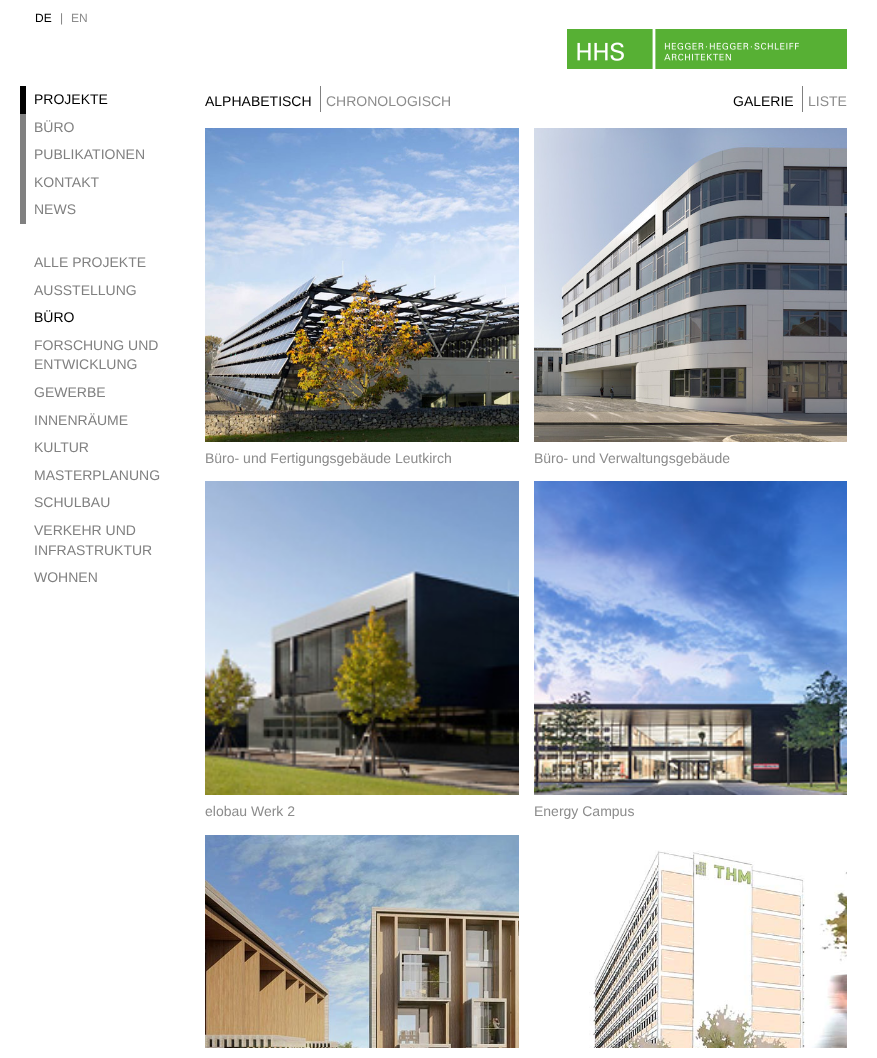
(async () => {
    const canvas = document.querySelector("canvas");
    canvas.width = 877;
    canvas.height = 1058;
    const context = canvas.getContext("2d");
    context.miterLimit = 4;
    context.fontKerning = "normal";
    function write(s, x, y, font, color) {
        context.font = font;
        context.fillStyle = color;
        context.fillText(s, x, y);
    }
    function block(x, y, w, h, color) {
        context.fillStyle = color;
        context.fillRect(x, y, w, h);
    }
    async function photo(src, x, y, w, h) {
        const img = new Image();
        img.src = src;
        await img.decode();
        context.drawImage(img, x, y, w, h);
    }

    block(0, 0, 877, 1058, "rgb(255, 255, 255)");
    write("DE", 35, 22, "12px Liberation Sans", "rgb(0, 0, 0)");
    write("|", 60, 22, "12px Liberation Sans", "rgb(128, 128, 128)");
    write("EN", 71, 22, "12px Liberation Sans", "rgb(140, 140, 140)");
    await photo("media/1.png", 567, 29, 280, 40);
    block(20, 86, 6, 28, "rgb(0, 0, 0)");
    write("PROJEKTE", 34, 104, "14px Liberation Sans", "rgb(0, 0, 0)");
    block(20, 114, 6, 110, "rgb(128, 128, 128)");
    write("BÜRO", 34, 132, "14px Liberation Sans", "rgb(128, 128, 128)");
    write("PUBLIKATIONEN", 34, 159, "14px Liberation Sans", "rgb(128, 128, 128)");
    write("KONTAKT", 34, 187, "14px Liberation Sans", "rgb(128, 128, 128)");
    write("NEWS", 34, 214, "14px Liberation Sans", "rgb(128, 128, 128)");
    write("ALLE PROJEKTE", 34, 267, "14px Liberation Sans", "rgb(128, 128, 128)");
    write("AUSSTELLUNG", 34, 295, "14px Liberation Sans", "rgb(128, 128, 128)");
    write("BÜRO", 34, 322, "14px Liberation Sans", "rgb(0, 0, 0)");
    write("FORSCHUNG UND", 34, 350, "14px Liberation Sans", "rgb(128, 128, 128)");
    write("ENTWICKLUNG", 34, 369, "14px Liberation Sans", "rgb(128, 128, 128)");
    write("GEWERBE", 34, 397, "14px Liberation Sans", "rgb(128, 128, 128)");
    write("INNENRÄUME", 34, 425, "14px Liberation Sans", "rgb(128, 128, 128)");
    write("KULTUR", 34, 452, "14px Liberation Sans", "rgb(128, 128, 128)");
    write("MASTERPLANUNG", 34, 480, "14px Liberation Sans", "rgb(128, 128, 128)");
    write("SCHULBAU", 34, 507, "14px Liberation Sans", "rgb(128, 128, 128)");
    write("VERKEHR UND", 34, 535, "14px Liberation Sans", "rgb(128, 128, 128)");
    write("INFRASTRUKTUR", 34, 555, "14px Liberation Sans", "rgb(128, 128, 128)");
    write("WOHNEN", 34, 582, "14px Liberation Sans", "rgb(128, 128, 128)");
    write("ALPHABETISCH", 205, 106, "14px Liberation Sans", "rgb(0, 0, 0)");
    block(320, 86, 1, 26, "rgb(128, 128, 128)");
    write("CHRONOLOGISCH", 326, 106, "14px Liberation Sans", "rgb(140, 140, 140)");
    write("GALERIE", 733, 106, "14px Liberation Sans", "rgb(0, 0, 0)");
    block(802, 86, 1, 26, "rgb(128, 128, 128)");
    write("LISTE", 808, 106, "14px Liberation Sans", "rgb(140, 140, 140)");
    await photo("media/2.png", 205, 128, 314, 314);
    write("Büro- und Fertigungsgebäude Leutkirch", 205, 463, "14px Liberation Sans", "rgb(140, 140, 140)");
    await photo("media/3.png", 534, 128, 313, 314);
    write("Büro- und Verwaltungsgebäude", 534, 463, "14px Liberation Sans", "rgb(140, 140, 140)");
    await photo("media/4.png", 205, 481, 314, 314);
    write("elobau Werk 2", 205, 816, "14px Liberation Sans", "rgb(140, 140, 140)");
    await photo("media/5.png", 534, 481, 313, 314);
    write("Energy Campus", 534, 816, "14px Liberation Sans", "rgb(140, 140, 140)");
    await photo("media/6.png", 205, 835, 314, 213);
    await photo("media/7.png", 589, 850, 258, 198);
})();
